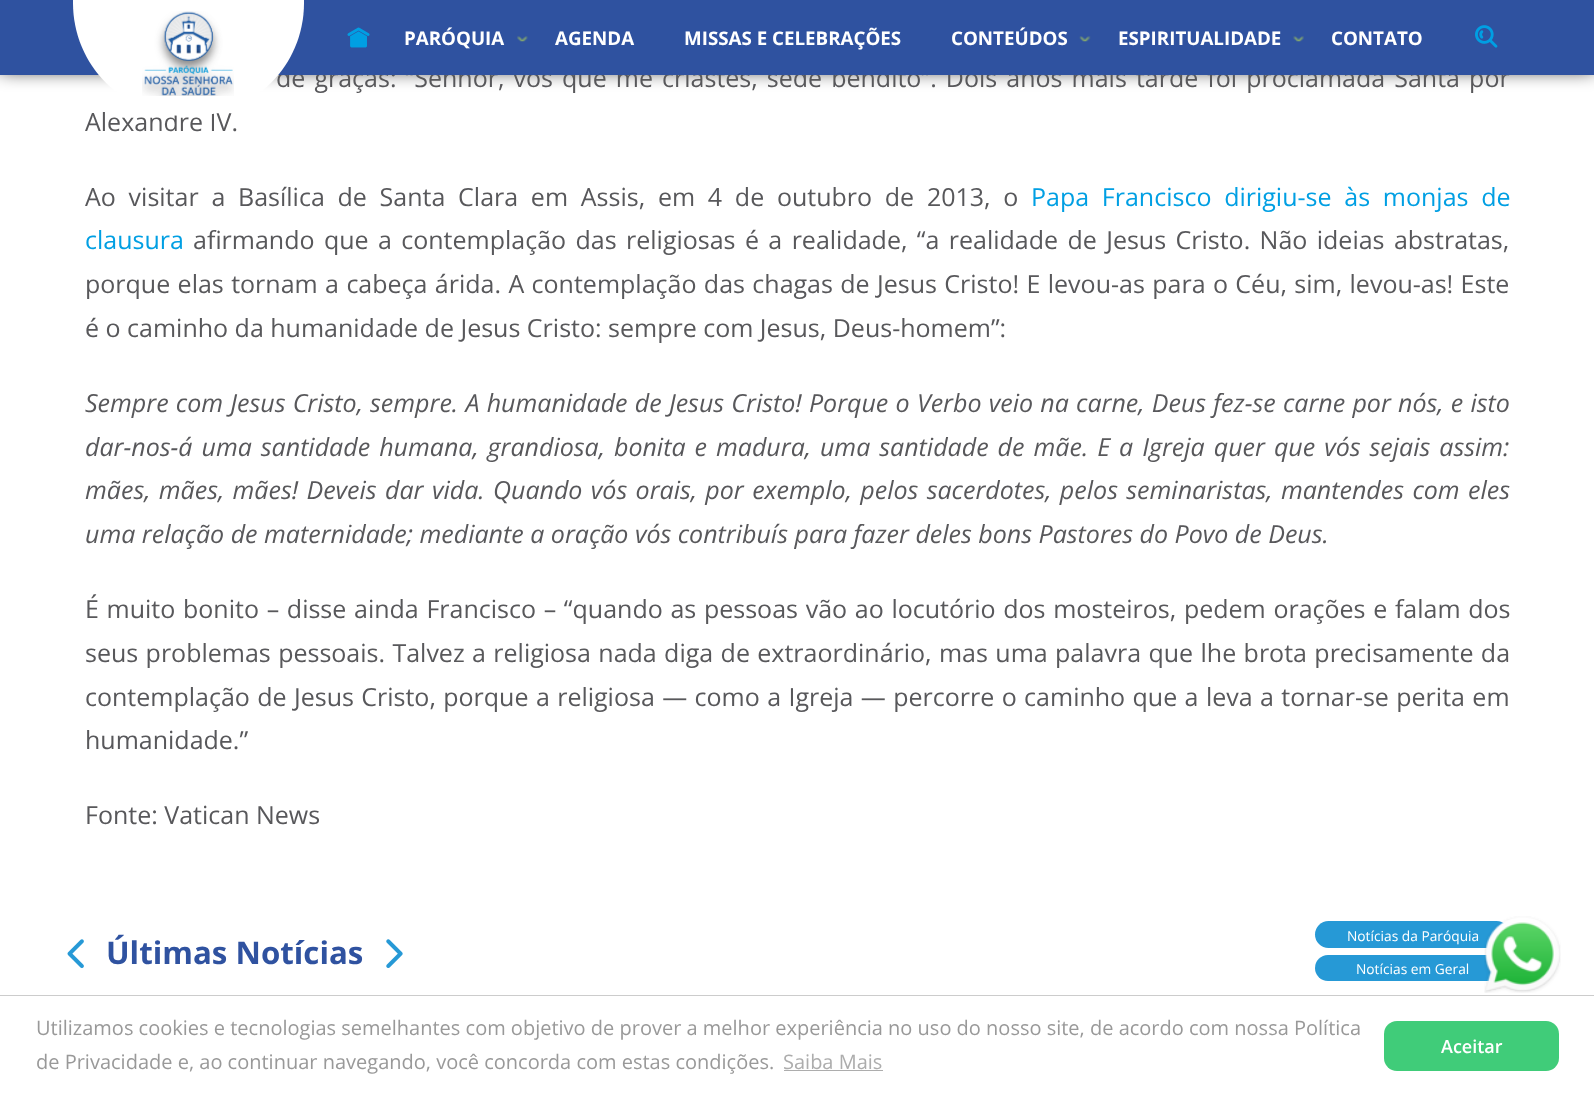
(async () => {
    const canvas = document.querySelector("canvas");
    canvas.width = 1594;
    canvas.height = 1096;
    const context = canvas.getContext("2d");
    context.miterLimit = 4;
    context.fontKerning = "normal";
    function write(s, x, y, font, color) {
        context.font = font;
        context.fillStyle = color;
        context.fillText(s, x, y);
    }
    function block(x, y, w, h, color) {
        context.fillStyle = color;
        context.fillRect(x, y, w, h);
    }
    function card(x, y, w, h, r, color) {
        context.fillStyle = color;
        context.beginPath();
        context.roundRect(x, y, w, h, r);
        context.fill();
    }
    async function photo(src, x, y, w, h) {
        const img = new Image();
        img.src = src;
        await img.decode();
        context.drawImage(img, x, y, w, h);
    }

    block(0, 0, 1594, 1096, "rgb(255, 255, 255)");
    context.fillStyle = "rgb(0, 0, 0)";
    context.filter = "blur(9.5px)";
    context.beginPath();
    context.rect(0, -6, 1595, 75);
    context.fill();
    context.filter = "none";
    context.wordSpacing = "2.6px";
    write("de graças: “Senhor, vós que me criastes, sede bendito”. Dois anos mais tarde foi proclamada Santa por", 276, 87, "25px Open Sans", "rgb(88, 88, 91)");
    block(0, 0, 1594, 75, "rgb(47, 82, 160)");
    context.wordSpacing = "0px";
    write("Alexandre IV.", 85, 131, "25px Open Sans", "rgb(88, 88, 91)");
    context.fillStyle = "rgb(255, 255, 255)";
    context.beginPath();
    context.moveTo(73, -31);
    context.lineTo(304, -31);
    context.lineTo(304, 3);
    context.bezierCurveTo(304, 65.5, 253.5, 116, 191, 116);
    context.lineTo(186, 116);
    context.bezierCurveTo(123.5, 116, 73, 65.5, 73, 3);
    context.closePath();
    context.fill();
    await photo("media/1.png", 142, 11, 92, 85);
    await photo("media/2.png", 347, 27, 23, 21);
    write("PARÓQUIA", 404, 45, "bold 18.75px Open Sans", "rgb(255, 255, 255)");
    await photo("media/3.png", 517, 36, 11, 6);
    write("AGENDA", 555, 45, "bold 18.75px Open Sans", "rgb(255, 255, 255)");
    write("MISSAS E CELEBRAÇÕES", 684, 45, "bold 18.75px Open Sans", "rgb(255, 255, 255)");
    write("CONTEÚDOS", 951, 45, "bold 18.75px Open Sans", "rgb(255, 255, 255)");
    await photo("media/4.png", 1079, 36, 12, 6);
    write("ESPIRITUALIDADE", 1118, 45, "bold 18.75px Open Sans", "rgb(255, 255, 255)");
    await photo("media/5.png", 1293, 36, 11, 6);
    write("CONTATO", 1331, 45, "bold 18.75px Open Sans", "rgb(255, 255, 255)");
    await photo("media/6.png", 1475, 25, 23, 23);
    context.wordSpacing = "6.25px";
    write("Ao visitar a Basílica de Santa Clara em Assis, em 4 de outubro de 2013, o", 85, 206, "25px Open Sans", "rgb(88, 88, 91)");
    write("Papa Francisco dirigiu-se às monjas de", 1031, 206, "25px Open Sans", "rgb(0, 159, 227)");
    context.wordSpacing = "0px";
    write("clausura", 85, 249, "25px Open Sans", "rgb(0, 159, 227)");
    context.wordSpacing = "2.9px";
    write("afirmando que a contemplação das religiosas é a realidade, “a realidade de Jesus Cristo. Não ideias abstratas,", 193, 249, "25px Open Sans", "rgb(88, 88, 91)");
    context.wordSpacing = "0.9px";
    write("porque elas tornam a cabeça árida. A contemplação das chagas de Jesus Cristo! E levou-as para o Céu, sim, levou-as! Este", 85, 293, "25px Open Sans", "rgb(88, 88, 91)");
    context.wordSpacing = "0px";
    write("é o caminho da humanidade de Jesus Cristo: sempre com Jesus, Deus-homem”:", 85, 337, "25px Open Sans", "rgb(88, 88, 91)");
    context.wordSpacing = "0.75px";
    write("Sempre com Jesus Cristo, sempre. A humanidade de Jesus Cristo! Porque o Verbo veio na carne, Deus fez-se carne por nós, e isto", 85, 412, "italic 25px Open Sans", "rgb(88, 88, 91)");
    context.wordSpacing = "2.5px";
    write("dar-nos-á uma santidade humana, grandiosa, bonita e madura, uma santidade de mãe. E a Igreja quer que vós sejais assim:", 85, 456, "italic 25px Open Sans", "rgb(88, 88, 91)");
    context.wordSpacing = "1.9px";
    write("mães, mães, mães! Deveis dar vida. Quando vós orais, por exemplo, pelos sacerdotes, pelos seminaristas, mantendes com eles", 85, 499, "italic 25px Open Sans", "rgb(88, 88, 91)");
    context.wordSpacing = "0px";
    write("uma relação de maternidade; mediante a oração vós contribuís para fazer deles bons Pastores do Povo de Deus.", 85, 543, "italic 25px Open Sans", "rgb(88, 88, 91)");
    context.wordSpacing = "1.2px";
    write("É muito bonito – disse ainda Francisco – “quando as pessoas vão ao locutório dos mosteiros, pedem orações e falam dos", 85, 618, "25px Open Sans", "rgb(88, 88, 91)");
    context.wordSpacing = "0.9px";
    write("seus problemas pessoais. Talvez a religiosa nada diga de extraordinário, mas uma palavra que lhe brota precisamente da", 85, 662, "25px Open Sans", "rgb(88, 88, 91)");
    write("contemplação de Jesus Cristo, porque a religiosa — como a Igreja — percorre o caminho que a leva a tornar-se perita em", 85, 706, "25px Open Sans", "rgb(88, 88, 91)");
    context.wordSpacing = "0px";
    write("humanidade.”", 85, 749, "25px Open Sans", "rgb(88, 88, 91)");
    write("Fonte: Vatican News", 85, 824, "25px Open Sans", "rgb(88, 88, 91)");
    await photo("media/7.png", 67, 939, 17, 30);
    write("Últimas Notícias", 106, 964, "bold 31.25px Open Sans", "rgb(47, 82, 160)");
    await photo("media/8.png", 386, 939, 17, 29);
    card(1315, 921, 195, 27, 13.5, "rgb(38, 153, 214)");
    write("Notícias da Paróquia", 1347, 941, "13.75px Open Sans", "rgb(255, 255, 255)");
    card(1315, 955, 195, 26, 13, "rgb(38, 153, 214)");
    write("Notícias em Geral", 1356, 974, "13.75px Open Sans", "rgb(255, 255, 255)");
    await photo("media/9.png", 1484, 916, 77, 77);
    block(0, 995, 1594, 1, "rgb(204, 204, 204)");
    write("Utilizamos cookies e tecnologias semelhantes com objetivo de prover a melhor experiência no uso do nosso site, de acordo com nossa Política", 36, 1035, "20px Open Sans", "rgb(153, 153, 153)");
    write("de Privacidade e, ao continuar navegando, você concorda com estas condições.", 36, 1069, "20px Open Sans", "rgb(153, 153, 153)");
    write("Saiba Mais", 783, 1069, "20px Open Sans", "rgb(173, 173, 173)");
    block(784, 1070, 99, 1, "rgb(173, 173, 173)");
    card(1384, 1021, 175, 50, 13, "rgb(64, 204, 121)");
    write("Aceitar", 1441, 1053, "600 18px Open Sans", "rgb(255, 255, 255)");
})();
